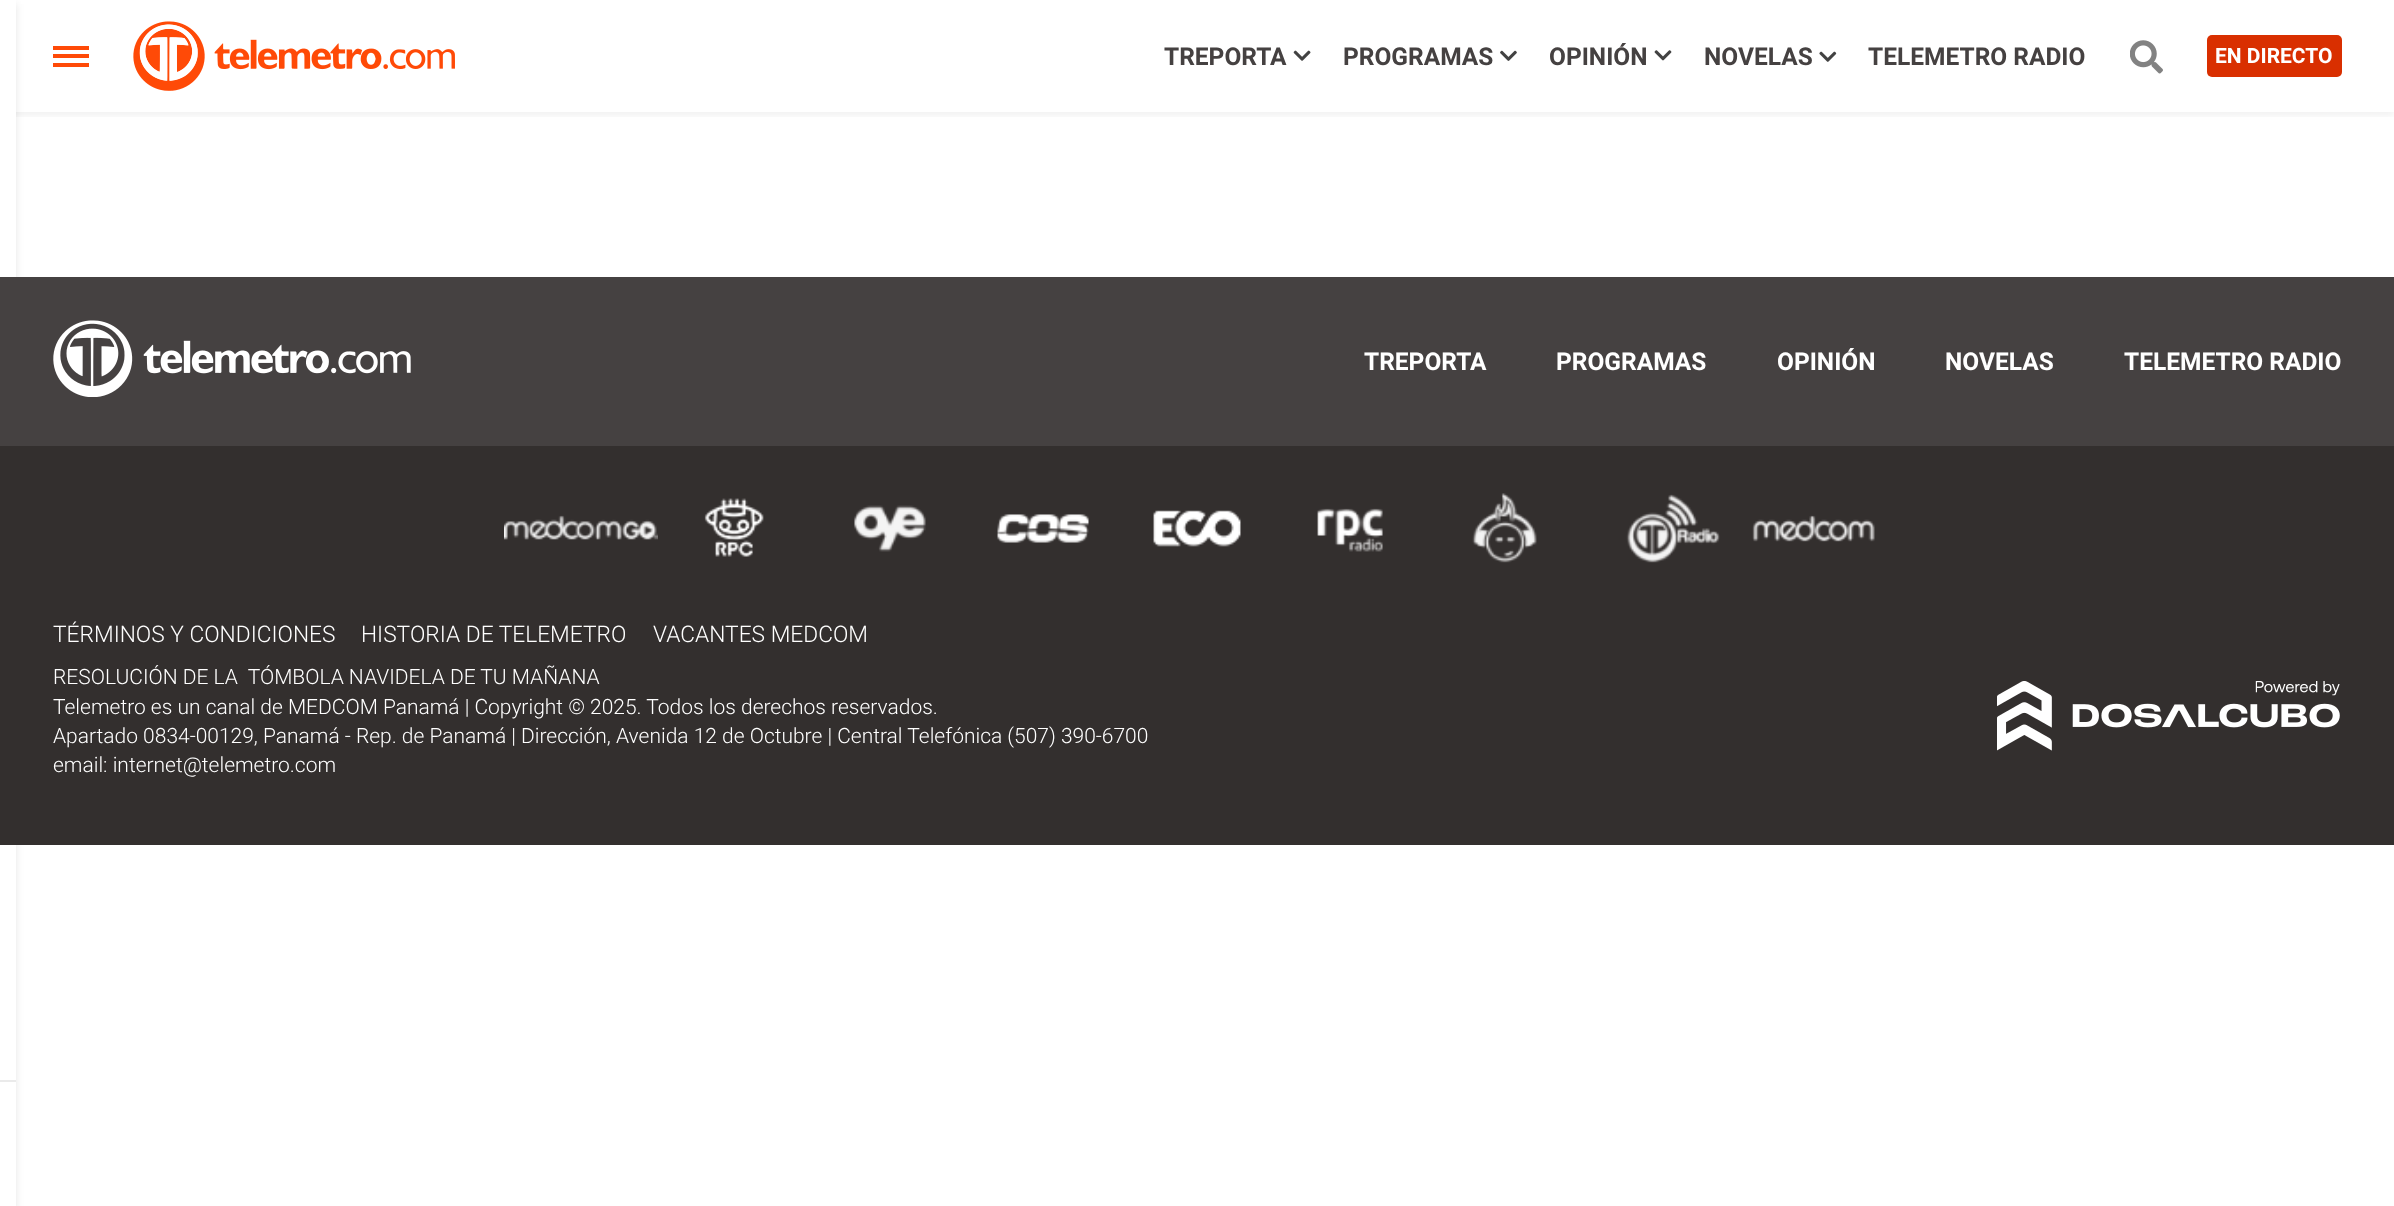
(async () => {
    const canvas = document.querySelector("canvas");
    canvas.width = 2394;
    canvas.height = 1206;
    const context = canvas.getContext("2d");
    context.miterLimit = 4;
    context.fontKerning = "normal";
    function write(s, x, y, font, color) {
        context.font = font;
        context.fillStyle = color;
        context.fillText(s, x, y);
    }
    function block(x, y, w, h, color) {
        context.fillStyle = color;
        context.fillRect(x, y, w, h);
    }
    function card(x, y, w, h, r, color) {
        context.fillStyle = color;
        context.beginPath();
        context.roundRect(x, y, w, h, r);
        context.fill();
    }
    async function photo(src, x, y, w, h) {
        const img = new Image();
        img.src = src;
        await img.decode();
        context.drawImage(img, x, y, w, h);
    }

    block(0, 0, 2394, 1206, "rgb(255, 255, 255)");
    context.save();
    context.beginPath();
    context.rect(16, 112, 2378, 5);
    context.clip();
    context.fillStyle = "rgba(0, 0, 0, 0.05)";
    context.filter = "blur(3.5px)";
    context.beginPath();
    context.rect(0, 4, 2394, 112);
    context.fill();
    context.filter = "none";
    context.restore();
    context.fillStyle = "rgba(0, 0, 0, 0.05)";
    context.filter = "blur(5px)";
    context.beginPath();
    context.rect(-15, 4, 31, 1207);
    context.fill();
    context.filter = "none";
    context.filter = "blur(3.5px)";
    context.beginPath();
    context.rect(-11, 4, 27, 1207);
    context.fill();
    context.filter = "none";
    block(0, 0, 16, 1206, "rgb(255, 255, 255)");
    block(0, 1080, 16, 2, "rgb(234, 234, 234)");
    block(53, 46, 36, 4, "rgb(255, 74, 7)");
    block(53, 54, 36, 4, "rgb(255, 74, 7)");
    block(53, 63, 36, 4, "rgb(255, 74, 7)");
    await photo("media/1.png", 133, 21, 322, 70);
    write("TREPORTA", 1164, 65, "bold 24.5px Roboto", "rgb(69, 65, 65)");
    await photo("media/2.png", 1293, 50, 18, 11);
    write("PROGRAMAS", 1343, 65, "bold 24.5px Roboto", "rgb(69, 65, 65)");
    await photo("media/3.png", 1500, 50, 17, 11);
    write("OPINIÓN", 1549, 65, "bold 24.5px Roboto", "rgb(69, 65, 65)");
    await photo("media/4.png", 1654, 50, 18, 11);
    write("NOVELAS", 1704, 65, "bold 24.5px Roboto", "rgb(69, 65, 65)");
    await photo("media/5.png", 1819, 51, 18, 11);
    write("TELEMETRO RADIO", 1868, 65, "bold 24.5px Roboto", "rgb(69, 65, 65)");
    await photo("media/6.png", 2130, 40, 33, 34);
    card(2207, 35, 135, 42, 5, "rgb(217, 47, 0)");
    write("EN DIRECTO", 2215, 63, "bold 21px Roboto", "rgb(255, 255, 255)");
    block(0, 277, 2394, 169, "rgb(69, 65, 65)");
    await photo("media/7.png", 53, 320, 358, 77);
    write("TREPORTA", 1364, 370, "bold 24.5px Roboto", "rgb(255, 255, 255)");
    write("PROGRAMAS", 1556, 370, "bold 24.5px Roboto", "rgb(255, 255, 255)");
    write("OPINIÓN", 1777, 370, "bold 24.5px Roboto", "rgb(255, 255, 255)");
    write("NOVELAS", 1945, 370, "bold 24.5px Roboto", "rgb(255, 255, 255)");
    write("TELEMETRO RADIO", 2124, 370, "bold 24.5px Roboto", "rgb(255, 255, 255)");
    block(0, 446, 2394, 399, "rgb(51, 47, 46)");
    await photo("media/8.png", 504, 515, 154, 25);
    await photo("media/9.png", 704, 498, 60, 59);
    await photo("media/10.png", 854, 505, 72, 47);
    await photo("media/11.png", 997, 514, 92, 29);
    await photo("media/12.png", 1153, 510, 88, 37);
    await photo("media/13.png", 1317, 508, 66, 44);
    await photo("media/14.png", 1472, 493, 65, 70);
    await photo("media/15.png", 1626, 494, 94, 69);
    await photo("media/16.png", 1752, 515, 123, 27);
    write("TÉRMINOS Y CONDICIONES", 53, 642, "300 22.75px Roboto", "rgb(255, 255, 255)");
    write("HISTORIA DE TELEMETRO", 361, 642, "300 22.75px Roboto", "rgb(255, 255, 255)");
    write("VACANTES MEDCOM", 653, 642, "300 22.75px Roboto", "rgb(255, 255, 255)");
    write("RESOLUCIÓN DE LA  TÓMBOLA NAVIDELA DE TU MAÑANA", 53, 684, "300 21px Roboto", "rgb(255, 255, 255)");
    write("Telemetro es un canal de MEDCOM Panamá | Copyright © 2025. Todos los derechos reservados.", 53, 714, "300 21px Roboto", "rgb(255, 255, 255)");
    write("Apartado 0834-00129, Panamá - Rep. de Panamá | Dirección, Avenida 12 de Octubre | Central Telefónica (507) 390-6700", 53, 743, "300 21px Roboto", "rgb(255, 255, 255)");
    write("email: internet@telemetro.com", 53, 772, "300 21px Roboto", "rgb(255, 255, 255)");
    await photo("media/17.png", 1997, 681, 343, 70);
})();
